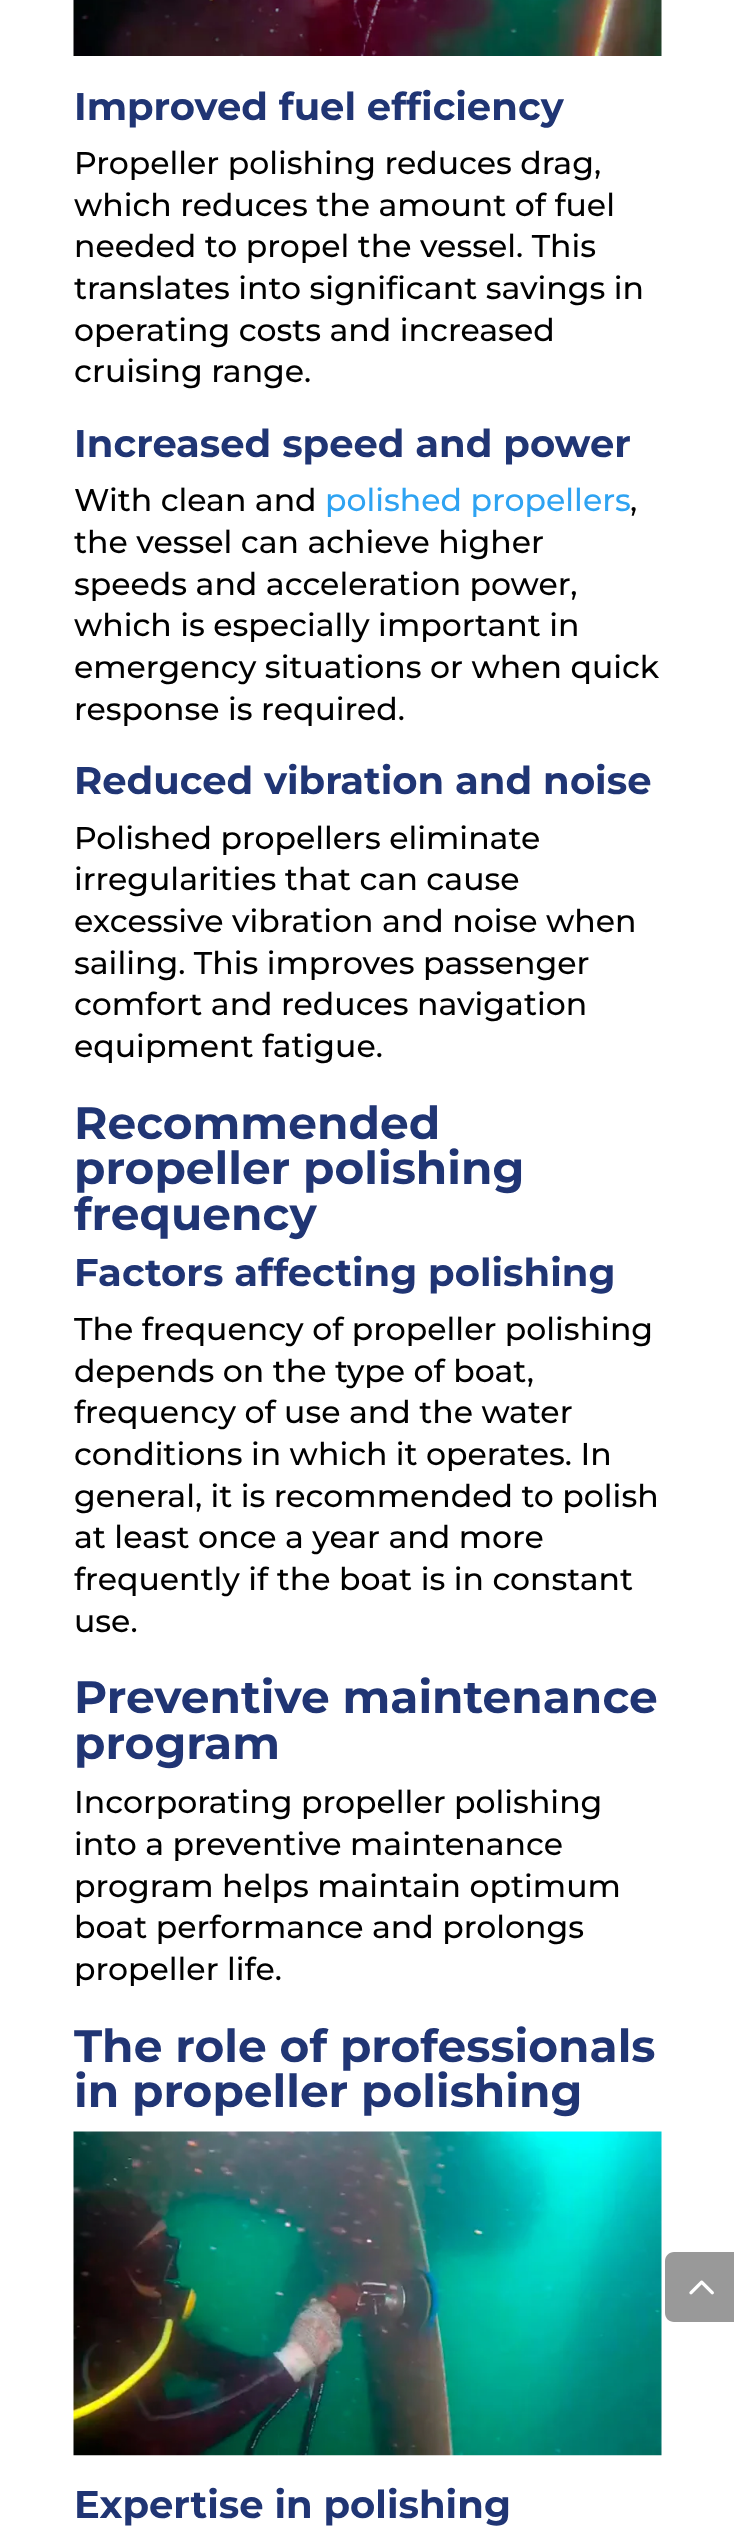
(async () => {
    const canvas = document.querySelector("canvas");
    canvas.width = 734;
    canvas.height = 2540;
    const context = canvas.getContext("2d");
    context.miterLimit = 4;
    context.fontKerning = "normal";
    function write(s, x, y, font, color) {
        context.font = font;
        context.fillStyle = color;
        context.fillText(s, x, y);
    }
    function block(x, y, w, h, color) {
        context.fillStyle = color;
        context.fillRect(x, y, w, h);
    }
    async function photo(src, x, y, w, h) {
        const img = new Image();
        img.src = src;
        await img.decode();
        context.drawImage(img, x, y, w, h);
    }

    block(0, 0, 734, 2540, "rgb(255, 255, 255)");
    await photo("media/1.png", 73, 0, 589, 56);
    write("Improved fuel efficiency", 74, 120, "bold 38.5px Montserrat", "rgb(32, 53, 116)");
    write("Propeller polishing reduces drag,", 74, 174, "500 31.5px Montserrat", "rgb(0, 0, 0)");
    write("which reduces the amount of fuel", 74, 216, "500 31.5px Montserrat", "rgb(0, 0, 0)");
    write("needed to propel the vessel. This", 74, 257, "500 31.5px Montserrat", "rgb(0, 0, 0)");
    write("translates into significant savings in", 74, 299, "500 31.5px Montserrat", "rgb(0, 0, 0)");
    write("operating costs and increased", 74, 341, "500 31.5px Montserrat", "rgb(0, 0, 0)");
    write("cruising range.", 74, 382, "500 31.5px Montserrat", "rgb(0, 0, 0)");
    write("Increased speed and power", 74, 457, "bold 38.5px Montserrat", "rgb(32, 53, 116)");
    write("With clean and", 74, 511, "500 31.5px Montserrat", "rgb(0, 0, 0)");
    write("polished propellers", 325, 511, "500 31.5px Montserrat", "rgb(46, 163, 242)");
    write(",", 630, 511, "500 31.5px Montserrat", "rgb(0, 0, 0)");
    write("the vessel can achieve higher", 74, 553, "500 31.5px Montserrat", "rgb(0, 0, 0)");
    write("speeds and acceleration power,", 74, 595, "500 31.5px Montserrat", "rgb(0, 0, 0)");
    write("which is especially important in", 74, 636, "500 31.5px Montserrat", "rgb(0, 0, 0)");
    write("emergency situations or when quick", 74, 678, "500 31.5px Montserrat", "rgb(0, 0, 0)");
    write("response is required.", 74, 720, "500 31.5px Montserrat", "rgb(0, 0, 0)");
    write("Reduced vibration and noise", 74, 794, "bold 38.5px Montserrat", "rgb(32, 53, 116)");
    write("Polished propellers eliminate", 74, 849, "500 31.5px Montserrat", "rgb(0, 0, 0)");
    write("irregularities that can cause", 74, 890, "500 31.5px Montserrat", "rgb(0, 0, 0)");
    write("excessive vibration and noise when", 74, 932, "500 31.5px Montserrat", "rgb(0, 0, 0)");
    write("sailing. This improves passenger", 74, 974, "500 31.5px Montserrat", "rgb(0, 0, 0)");
    write("comfort and reduces navigation", 74, 1015, "500 31.5px Montserrat", "rgb(0, 0, 0)");
    write("equipment fatigue.", 74, 1057, "500 31.5px Montserrat", "rgb(0, 0, 0)");
    write("Recommended", 74, 1139, "bold 45.5px Montserrat", "rgb(32, 53, 116)");
    write("propeller polishing", 74, 1184, "bold 45.5px Montserrat", "rgb(32, 53, 116)");
    write("frequency", 74, 1230, "bold 45.5px Montserrat", "rgb(32, 53, 116)");
    write("Factors affecting polishing", 74, 1286, "bold 38.5px Montserrat", "rgb(32, 53, 116)");
    write("The frequency of propeller polishing", 74, 1340, "500 31.5px Montserrat", "rgb(0, 0, 0)");
    write("depends on the type of boat,", 74, 1382, "500 31.5px Montserrat", "rgb(0, 0, 0)");
    write("frequency of use and the water", 74, 1423, "500 31.5px Montserrat", "rgb(0, 0, 0)");
    write("conditions in which it operates. In", 74, 1465, "500 31.5px Montserrat", "rgb(0, 0, 0)");
    write("general, it is recommended to polish", 74, 1507, "500 31.5px Montserrat", "rgb(0, 0, 0)");
    write("at least once a year and more", 74, 1548, "500 31.5px Montserrat", "rgb(0, 0, 0)");
    write("frequently if the boat is in constant", 74, 1590, "500 31.5px Montserrat", "rgb(0, 0, 0)");
    write("use.", 74, 1632, "500 31.5px Montserrat", "rgb(0, 0, 0)");
    write("Preventive maintenance", 74, 1713, "bold 45.5px Montserrat", "rgb(32, 53, 116)");
    write("program", 74, 1759, "bold 45.5px Montserrat", "rgb(32, 53, 116)");
    write("Incorporating propeller polishing", 74, 1813, "500 31.5px Montserrat", "rgb(0, 0, 0)");
    write("into a preventive maintenance", 74, 1855, "500 31.5px Montserrat", "rgb(0, 0, 0)");
    write("program helps maintain optimum", 74, 1897, "500 31.5px Montserrat", "rgb(0, 0, 0)");
    write("boat performance and prolongs", 74, 1938, "500 31.5px Montserrat", "rgb(0, 0, 0)");
    write("propeller life.", 74, 1980, "500 31.5px Montserrat", "rgb(0, 0, 0)");
    write("The role of professionals", 74, 2062, "bold 45.5px Montserrat", "rgb(32, 53, 116)");
    write("in propeller polishing", 74, 2107, "bold 45.5px Montserrat", "rgb(32, 53, 116)");
    await photo("media/2.png", 73, 2131, 589, 325);
    write("Expertise in polishing", 74, 2518, "bold 38.5px Montserrat", "rgb(32, 53, 116)");
    context.fillStyle = "rgb(153, 153, 153)";
    context.beginPath();
    context.moveTo(674, 2252);
    context.lineTo(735, 2252);
    context.lineTo(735, 2322);
    context.lineTo(674, 2322);
    context.bezierCurveTo(669, 2322, 665, 2318, 665, 2313);
    context.lineTo(665, 2261);
    context.bezierCurveTo(665, 2256, 669, 2252, 674, 2252);
    context.closePath();
    context.fill();
    await photo("media/3.png", 689, 2280, 25, 15);
})();
